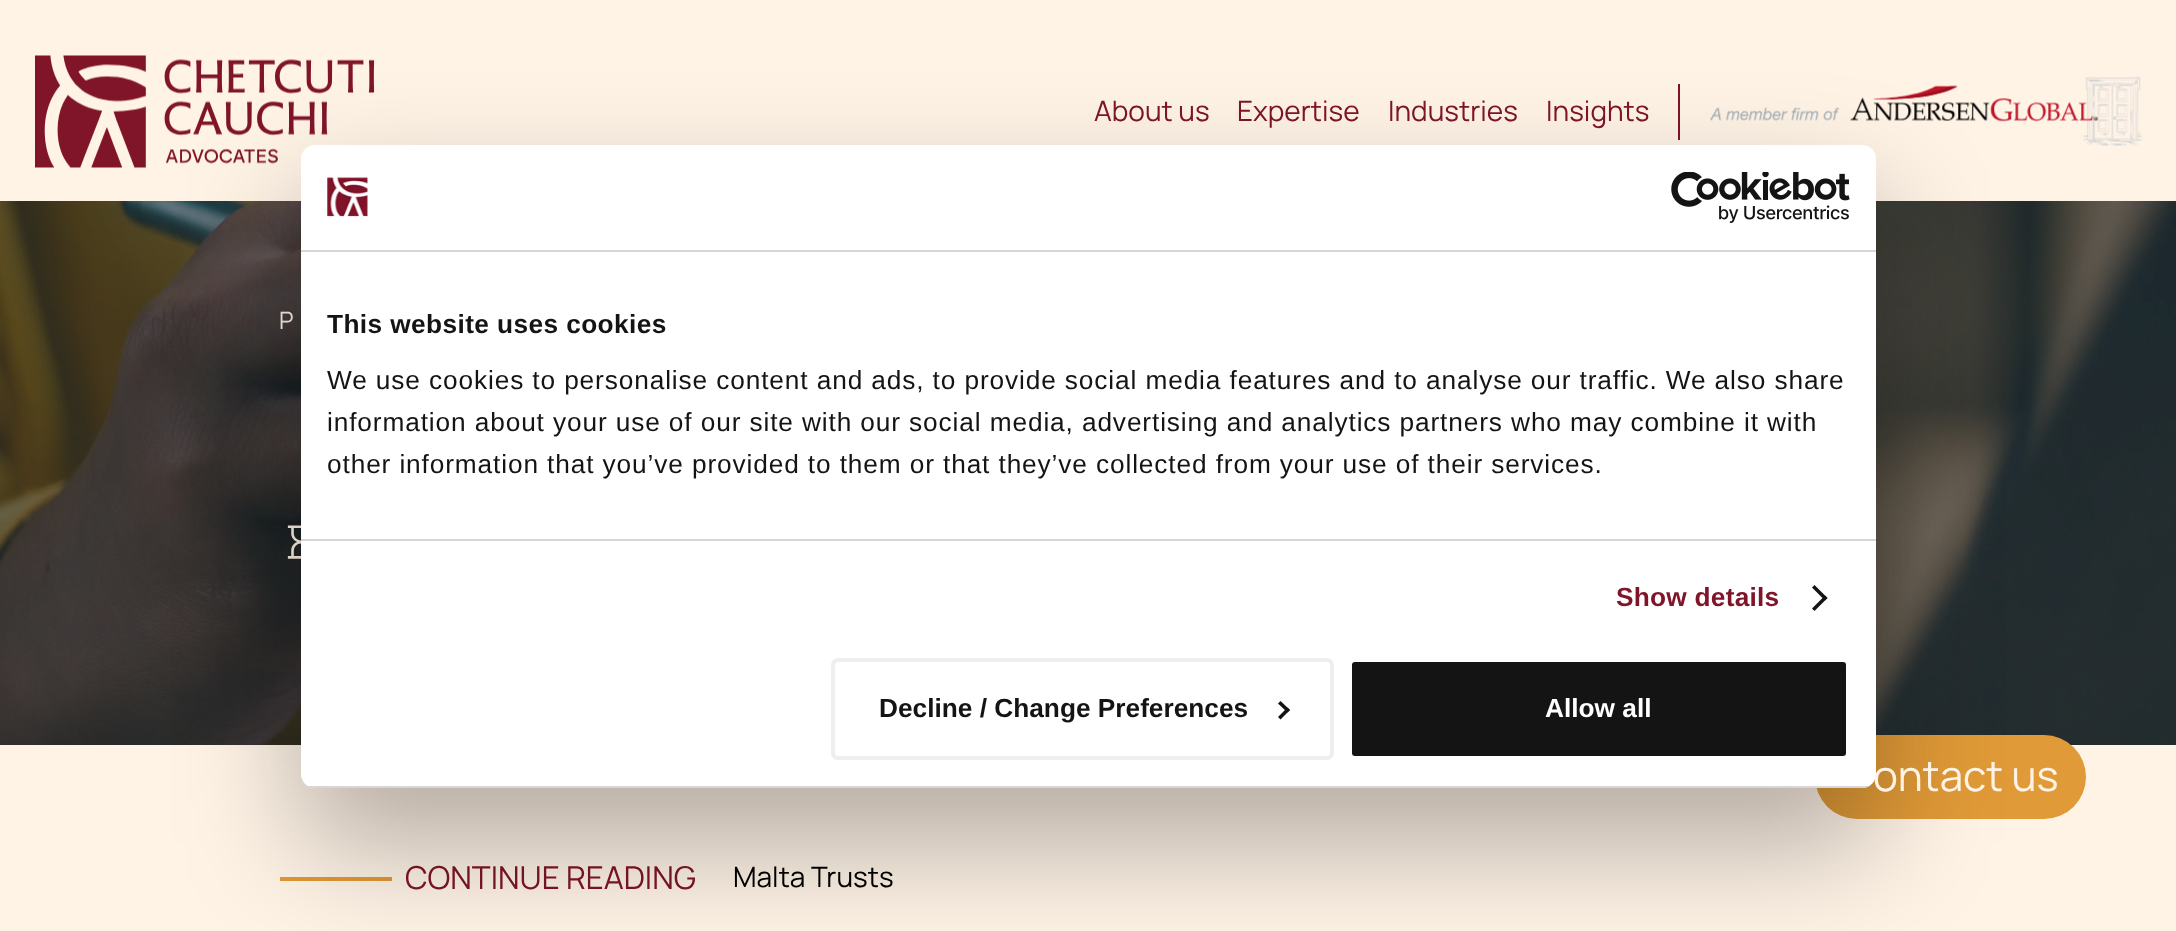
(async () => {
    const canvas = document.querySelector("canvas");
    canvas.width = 2176;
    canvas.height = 931;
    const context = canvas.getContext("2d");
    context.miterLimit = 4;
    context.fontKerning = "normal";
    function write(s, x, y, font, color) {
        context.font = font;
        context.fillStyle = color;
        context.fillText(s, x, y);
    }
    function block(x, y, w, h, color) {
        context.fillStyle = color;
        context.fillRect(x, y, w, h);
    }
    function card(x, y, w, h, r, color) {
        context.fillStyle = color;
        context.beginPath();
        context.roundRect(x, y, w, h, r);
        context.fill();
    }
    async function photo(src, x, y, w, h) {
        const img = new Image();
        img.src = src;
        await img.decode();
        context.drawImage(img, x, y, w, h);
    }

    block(0, 0, 2176, 931, "rgb(255, 243, 230)");
    await photo("media/1.png", 35, 55, 340, 113);
    write("About us", 1094, 121, "28px Manrope", "rgb(128, 21, 42)");
    write("Expertise", 1237, 121, "28px Manrope", "rgb(128, 21, 42)");
    write("Industries", 1388, 121, "28px Manrope", "rgb(128, 21, 42)");
    write("Insights", 1546, 121, "28px Manrope", "rgb(128, 21, 42)");
    block(1678, 84, 2, 56, "rgb(128, 21, 42)");
    await photo("media/2.png", 1710, 76, 432, 70);
    await photo("media/3.png", 0, 201, 2176, 544);
    write("P", 279, 329, "24px Manrope", "rgb(255, 243, 230)");
    await photo("media/4.png", 287, 525, 14, 34);
    block(280, 877, 112, 4, "rgb(224, 154, 55)");
    write("CONTINUE READING", 405, 889, "31.5px Manrope", "rgb(128, 21, 42)");
    write("Malta Trusts", 733, 887, "28px Manrope", "rgb(0, 0, 0)");
    card(1815, 735, 271, 84, 42, "rgb(224, 154, 55)");
    context.fillStyle = "rgba(0, 0, 0, 0.3)";
    context.filter = "blur(59.5px)";
    context.beginPath();
    context.roundRect(301, 201, 1575, 643, 14);
    context.fill();
    context.filter = "none";
    write("ontact us", 1873, 791, "42px Manrope", "rgb(255, 243, 230)");
    card(301, 145, 1575, 643, 14, "rgb(255, 255, 255)");
    block(301, 250, 1575, 2, "rgb(214, 214, 214)");
    await photo("media/5.png", 327, 177, 41, 40);
    await photo("media/6.png", 1671, 172, 179, 51);
    block(301, 539, 1575, 2, "rgb(214, 214, 214)");
    context.letterSpacing = "0.4px";
    write("This website uses cookies", 327, 333, "bold 26.25px Liberation Sans", "rgb(20, 20, 20)");
    context.letterSpacing = "0.88px";
    write("We use cookies to personalise content and ads, to provide social media features and to analyse our traffic. We also share", 327, 389, "26.25px Liberation Sans", "rgb(20, 20, 20)");
    write("information about your use of our site with our social media, advertising and analytics partners who may combine it with", 327, 431, "26.25px Liberation Sans", "rgb(20, 20, 20)");
    write("other information that you’ve provided to them or that they’ve collected from your use of their services.", 327, 473, "26.25px Liberation Sans", "rgb(20, 20, 20)");
    context.letterSpacing = "0.25px";
    write("Show details", 1616, 606, "bold 26.25px Liberation Sans", "rgb(128, 21, 42)");
    context.fillStyle = "rgb(20, 20, 20)";
    context.beginPath();
    context.moveTo(1814.5, 585);
    context.lineTo(1827.5, 598);
    context.lineTo(1825, 600.5);
    context.lineTo(1812, 587.5);
    context.closePath();
    context.fill();
    context.beginPath();
    context.moveTo(1825, 595.5);
    context.lineTo(1827.5, 598);
    context.lineTo(1814.5, 611);
    context.lineTo(1812, 608.5);
    context.closePath();
    context.fill();
    context.save();
    context.beginPath();
    context.roundRect(301, 145, 1575, 643, 14);
    context.clip();
    block(301, 786, 1575, 2, "rgb(214, 214, 214)");
    context.restore();
    context.beginPath();
    context.roundRect(833, 660, 499, 98, 5);
    context.strokeStyle = "rgb(238, 238, 238)";
    context.lineWidth = 4;
    context.stroke();
    context.letterSpacing = "0px";
    write("Decline / Change Preferences", 879, 717, "bold 26.25px Liberation Sans", "rgb(20, 20, 20)");
    context.beginPath();
    context.moveTo(1280.5, 701);
    context.lineTo(1290, 710);
    context.lineTo(1287.5, 712.5);
    context.lineTo(1278, 703.5);
    context.closePath();
    context.fill();
    context.beginPath();
    context.moveTo(1287.5, 707.5);
    context.lineTo(1290, 710);
    context.lineTo(1280.5, 719.5);
    context.lineTo(1278, 717);
    context.closePath();
    context.fill();
    context.beginPath();
    context.roundRect(1350, 660, 498, 98, 5);
    context.fill();
    context.strokeStyle = "rgb(255, 255, 255)";
    context.stroke();
    write("Allow all", 1545, 717, "bold 26.25px Liberation Sans", "rgb(255, 255, 255)");
})();
